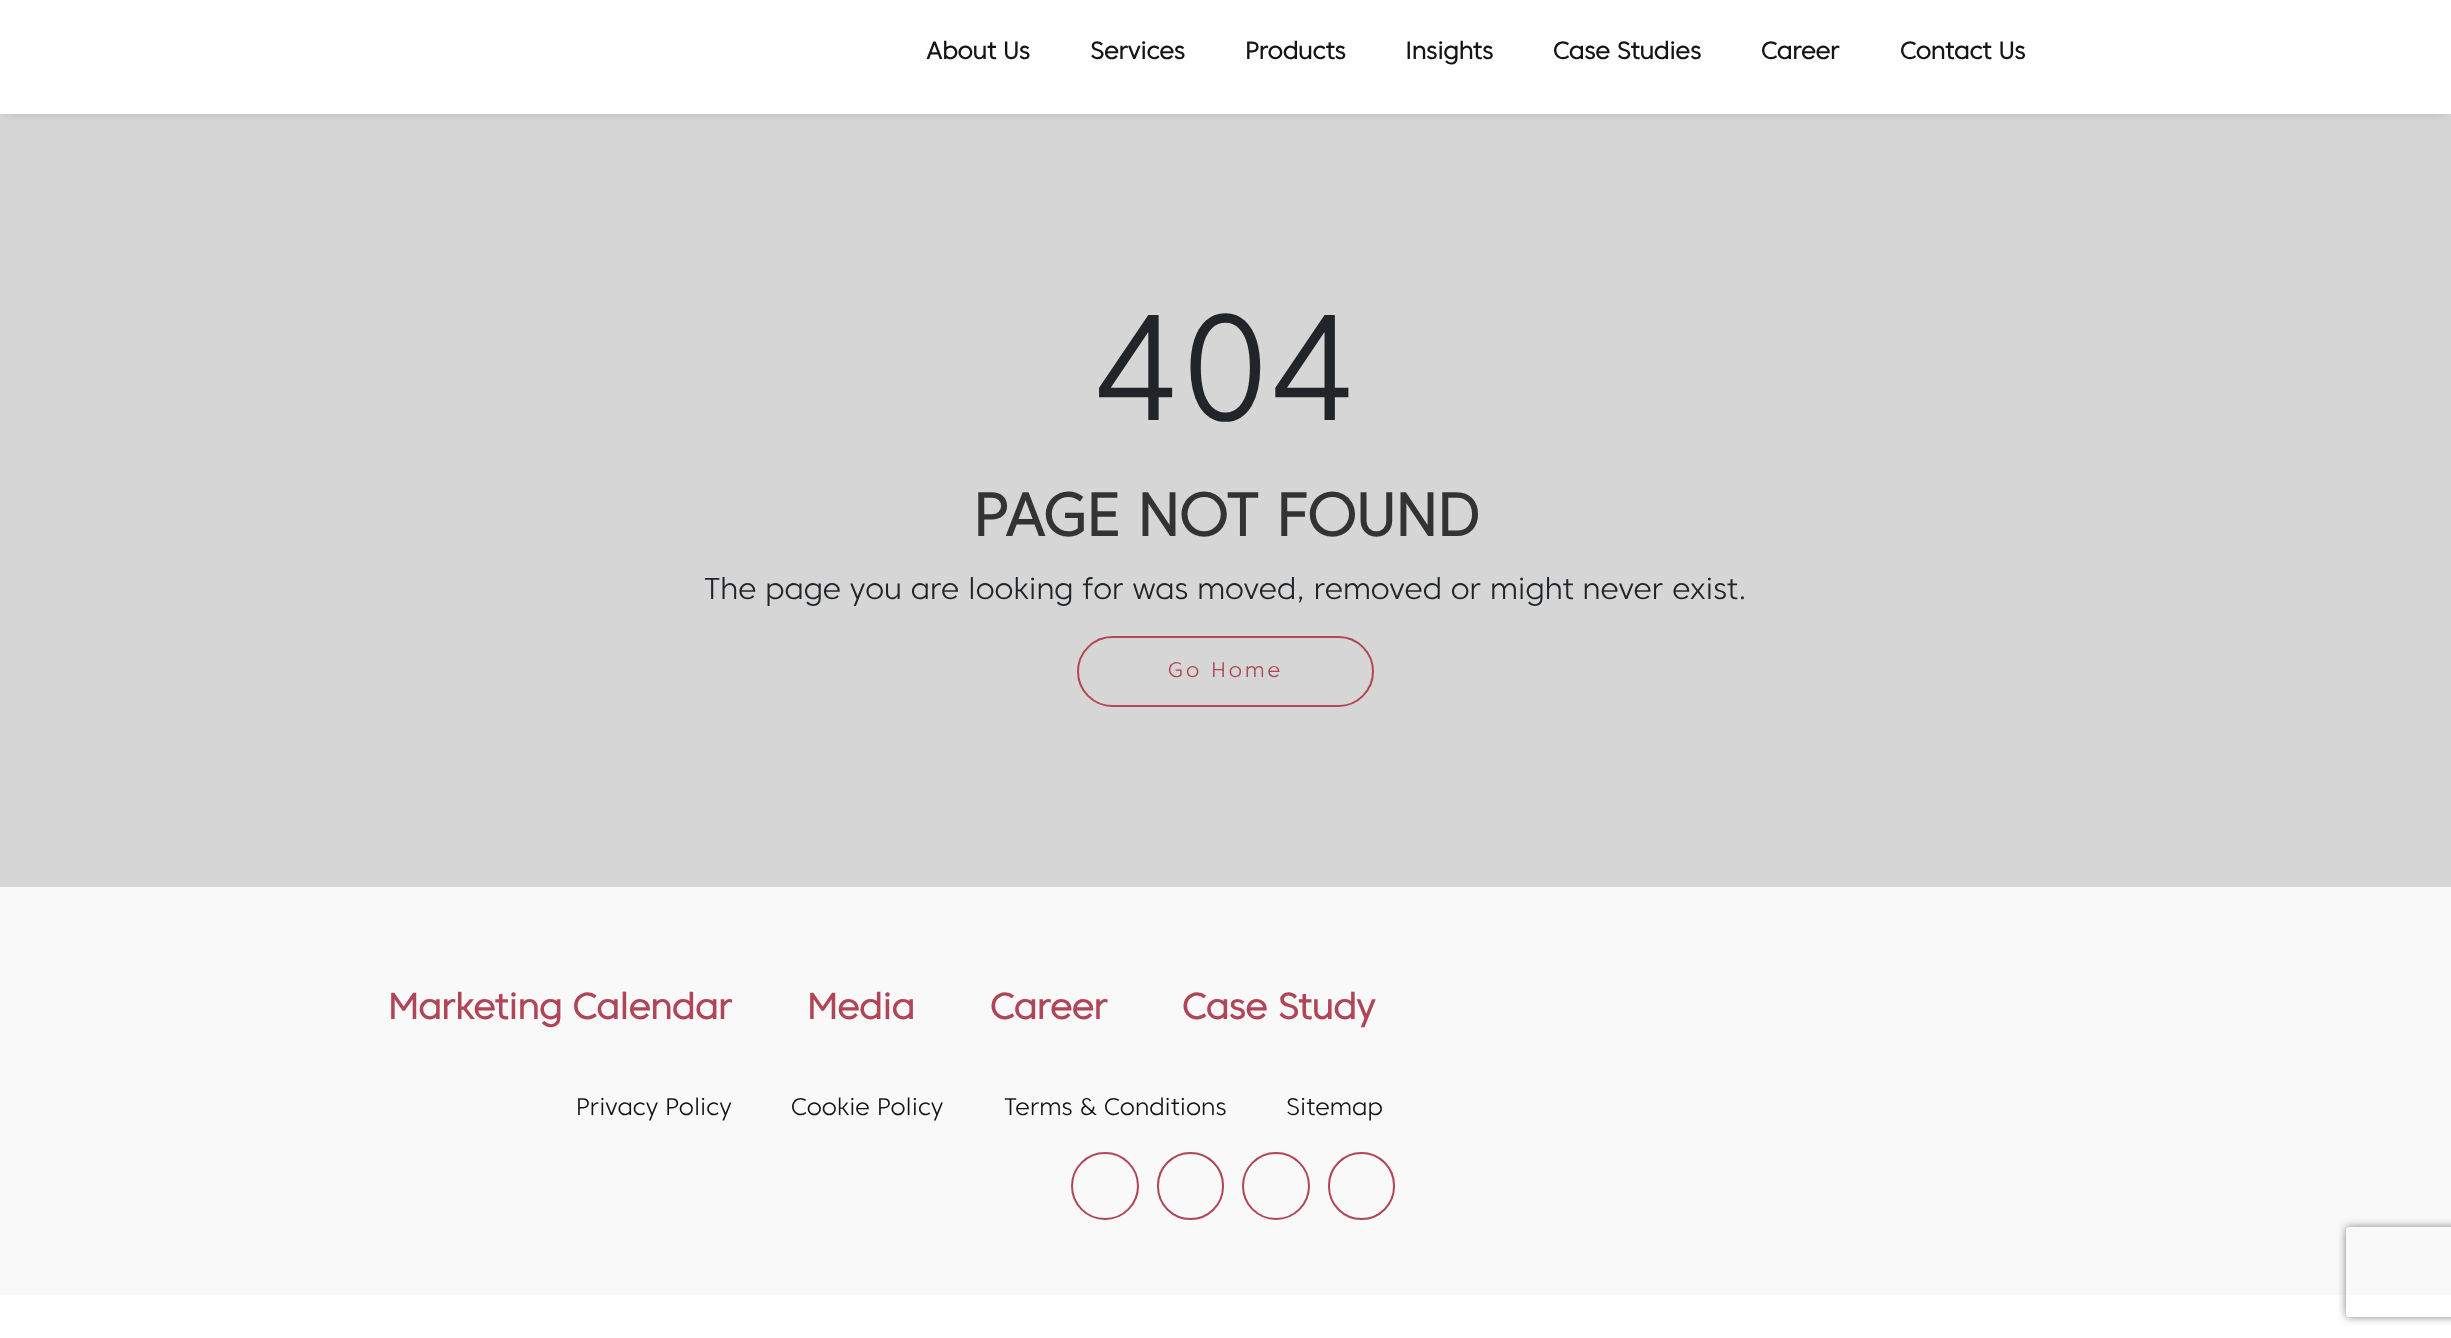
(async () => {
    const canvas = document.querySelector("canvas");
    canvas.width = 2451;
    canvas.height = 1338;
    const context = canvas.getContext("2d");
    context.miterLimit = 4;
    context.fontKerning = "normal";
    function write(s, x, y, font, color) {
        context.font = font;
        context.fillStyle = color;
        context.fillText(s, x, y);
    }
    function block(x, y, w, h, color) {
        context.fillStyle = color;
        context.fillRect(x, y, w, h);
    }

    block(0, 0, 2451, 1338, "rgb(255, 255, 255)");
    block(0, 114, 2451, 773, "rgb(214, 214, 214)");
    context.save();
    context.beginPath();
    context.rect(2, 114, 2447, 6);
    context.clip();
    context.fillStyle = "rgba(0, 0, 0, 0.35)";
    context.filter = "blur(7.5px)";
    context.beginPath();
    context.rect(6, 6, 2439, 102);
    context.fill();
    context.filter = "none";
    context.restore();
    write("About Us", 926, 59, "bold 24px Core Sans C", "rgb(21, 21, 21)");
    write("Services", 1090, 59, "bold 24px Core Sans C", "rgb(21, 21, 21)");
    write("Products", 1245, 59, "bold 24px Core Sans C", "rgb(21, 21, 21)");
    write("Insights", 1405, 59, "bold 24px Core Sans C", "rgb(21, 21, 21)");
    write("Case Studies", 1553, 59, "bold 24px Core Sans C", "rgb(21, 21, 21)");
    write("Career", 1761, 59, "bold 24px Core Sans C", "rgb(21, 21, 21)");
    write("Contact Us", 1900, 59, "bold 24px Core Sans C", "rgb(21, 21, 21)");
    write("404", 1093, 420, "300 150px Core Sans C", "rgb(33, 37, 41)");
    write("PAGE NOT FOUND", 973, 536, "bold 60px Core Sans C", "rgb(51, 51, 51)");
    write("The page you are looking for was moved, removed or might never exist.", 704, 599, "300 30px Core Sans C", "rgb(33, 37, 41)");
    context.beginPath();
    context.roundRect(1078, 637, 295, 69, 34.5);
    context.strokeStyle = "rgb(179, 69, 84)";
    context.lineWidth = 2;
    context.stroke();
    context.letterSpacing = "3px";
    write("Go Home", 1168, 677, "300 21px Core Sans C", "rgb(176, 69, 88)");
    block(0, 887, 2451, 408, "rgb(249, 249, 249)");
    context.letterSpacing = "0px";
    write("Marketing Calendar", 388, 1019, "bold 36px Core Sans C", "rgb(176, 69, 88)");
    write("Media", 807, 1019, "bold 36px Core Sans C", "rgb(176, 69, 88)");
    write("Career", 990, 1019, "bold 36px Core Sans C", "rgb(176, 69, 88)");
    write("Case Study", 1182, 1019, "bold 36px Core Sans C", "rgb(176, 69, 88)");
    write("Privacy Policy", 576, 1115, "300 24px Core Sans C", "rgb(21, 21, 21)");
    write("Cookie Policy", 791, 1115, "300 24px Core Sans C", "rgb(21, 21, 21)");
    write("Terms & Conditions", 1004, 1115, "300 24px Core Sans C", "rgb(21, 21, 21)");
    write("Sitemap", 1286, 1115, "300 24px Core Sans C", "rgb(21, 21, 21)");
    context.beginPath();
    context.arc(1105, 1186, 33, 0, Math.PI * 2);
    context.strokeStyle = "rgb(176, 69, 88)";
    context.stroke();
    context.beginPath();
    context.roundRect(1158, 1153, 65, 66, 32.5);
    context.stroke();
    context.beginPath();
    context.arc(1276, 1186, 33, 0, Math.PI * 2);
    context.stroke();
    context.beginPath();
    context.roundRect(1329, 1153, 65, 66, 32.5);
    context.stroke();
    context.save();
    context.beginPath();
    context.moveTo(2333, 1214);
    context.lineTo(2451, 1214);
    context.lineTo(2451, 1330);
    context.lineTo(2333, 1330);
    context.closePath();
    context.moveTo(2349, 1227);
    context.lineTo(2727, 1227);
    context.bezierCurveTo(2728.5, 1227, 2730, 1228.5, 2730, 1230);
    context.lineTo(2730, 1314);
    context.bezierCurveTo(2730, 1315.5, 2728.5, 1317, 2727, 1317);
    context.lineTo(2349, 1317);
    context.bezierCurveTo(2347.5, 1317, 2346, 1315.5, 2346, 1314);
    context.lineTo(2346, 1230);
    context.bezierCurveTo(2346, 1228.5, 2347.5, 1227, 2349, 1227);
    context.closePath();
    context.clip("evenodd");
    context.fillStyle = "rgb(128, 128, 128)";
    context.filter = "blur(4px)";
    context.beginPath();
    context.roundRect(2346, 1227, 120, 90, 3);
    context.fill();
    context.filter = "none";
    context.restore();
})();
